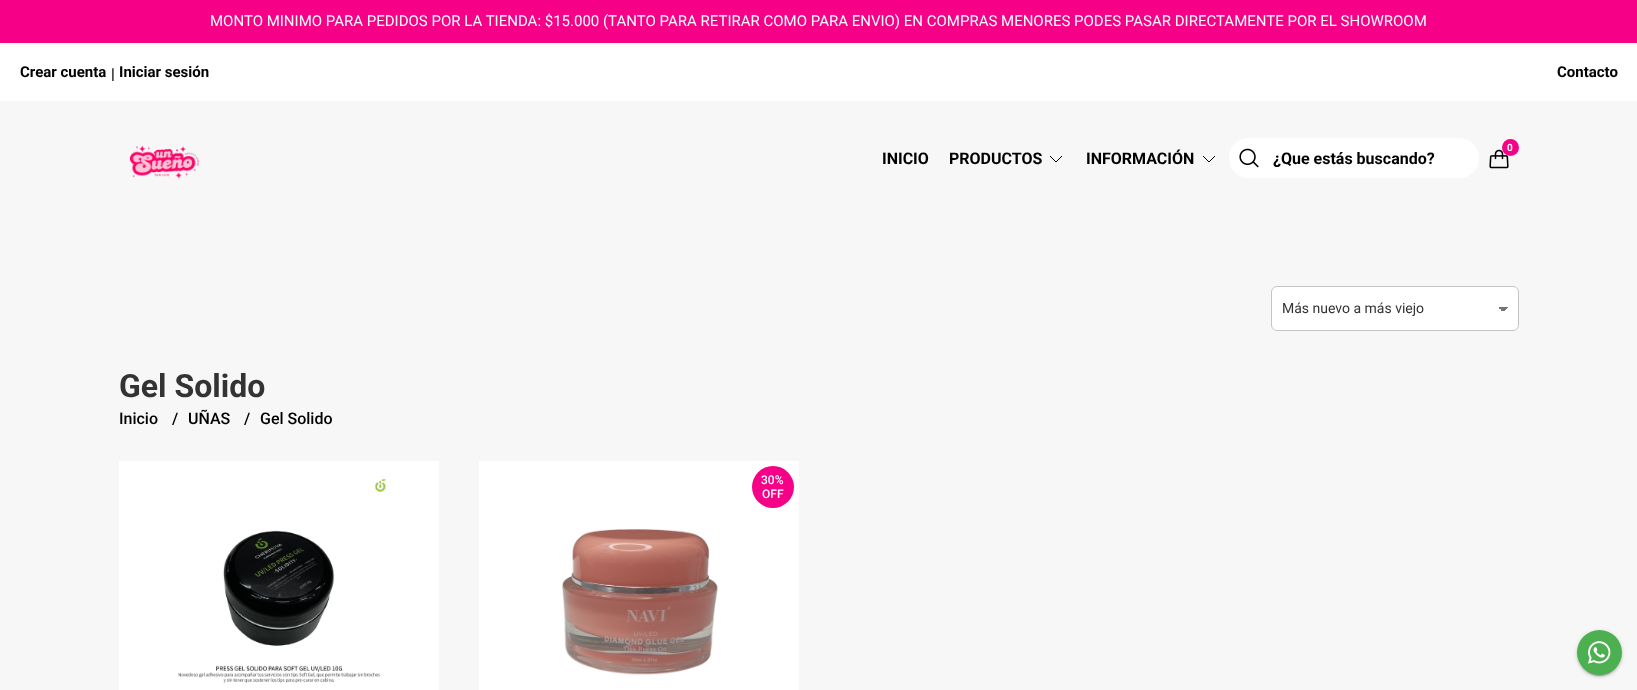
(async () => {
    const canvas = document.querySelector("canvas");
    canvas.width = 1637;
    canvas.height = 690;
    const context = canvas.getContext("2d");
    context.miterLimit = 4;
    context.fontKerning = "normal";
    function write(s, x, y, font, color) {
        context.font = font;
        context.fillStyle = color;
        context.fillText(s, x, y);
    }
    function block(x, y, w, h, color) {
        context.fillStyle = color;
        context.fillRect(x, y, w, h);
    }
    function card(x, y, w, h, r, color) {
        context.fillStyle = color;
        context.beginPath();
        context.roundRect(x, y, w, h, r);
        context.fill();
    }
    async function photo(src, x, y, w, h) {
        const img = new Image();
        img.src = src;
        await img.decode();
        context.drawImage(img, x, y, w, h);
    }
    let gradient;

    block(0, 0, 1637, 690, "rgb(247, 247, 247)");
    block(0, 0, 1637, 43, "rgb(245, 0, 135)");
    write("MONTO MINIMO PARA PEDIDOS POR LA TIENDA: $15.000 (TANTO PARA RETIRAR COMO PARA ENVIO) EN COMPRAS MENORES PODES PASAR DIRECTAMENTE POR EL SHOWROOM", 210, 26, "15px Roboto", "rgb(255, 255, 255)");
    block(0, 43, 1637, 58, "rgb(255, 255, 255)");
    write("Crear cuenta", 20, 77, "bold 15px Roboto", "rgb(0, 0, 0)");
    write("|", 111, 79, "bold 15px Roboto", "rgb(0, 0, 0)");
    write("Iniciar sesión", 119, 77, "bold 15px Roboto", "rgb(0, 0, 0)");
    write("Contacto", 1557, 77, "bold 15px Roboto", "rgb(0, 0, 0)");
    await photo("media/1.png", 129, 145, 70, 34);
    await photo("media/2.png", 1489, 149, 20, 20);
    context.fillStyle = "rgb(245, 0, 135)";
    context.beginPath();
    context.arc(1510.5, 147.5, 8.5, 0, Math.PI * 2);
    context.fill();
    write("0", 1507, 151, "bold 10px Roboto", "rgb(255, 255, 255)");
    write("INICIO", 882, 164, "bold 16px Roboto", "rgb(0, 0, 0)");
    write("PRODUCTOS", 949, 164, "bold 16px Roboto", "rgb(0, 0, 0)");
    context.beginPath();
    context.moveTo(1062, 156);
    context.lineTo(1056, 162);
    context.lineTo(1050, 156);
    context.strokeStyle = "rgb(0, 0, 0)";
    context.stroke();
    write("INFORMACIÓN", 1086, 164, "bold 16px Roboto", "rgb(0, 0, 0)");
    context.beginPath();
    context.moveTo(1215, 156);
    context.lineTo(1209, 162);
    context.lineTo(1203, 156);
    context.stroke();
    card(1229, 138, 250, 40, 20, "rgb(255, 255, 255)");
    await photo("media/3.png", 1239, 148, 20, 20);
    write("¿Que estás buscando?", 1273, 164, "bold 16px Roboto", "rgb(0, 0, 0)");
    card(1271, 286, 248, 45, 6, "rgb(255, 255, 255)");
    gradient = context.createLinearGradient(1503, 307, 1508, 312);
    gradient.addColorStop(0.5, "rgb(117, 117, 117)");
    gradient.addColorStop(0.5, "rgb(255, 255, 255)");
    context.fillStyle = gradient;
    context.fillRect(1503, 307, 5, 4);
    gradient = context.createLinearGradient(1498, 312, 1503, 307);
    gradient.addColorStop(0.5, "rgb(255, 255, 255)");
    gradient.addColorStop(0.5, "rgb(117, 117, 117)");
    context.fillStyle = gradient;
    context.fillRect(1498, 307, 5, 4);
    context.beginPath();
    context.roundRect(1271.5, 286.5, 247, 44, 5.5);
    context.strokeStyle = "rgb(196, 196, 196)";
    context.stroke();
    write("Más nuevo a más viejo", 1282, 313, "14px Roboto", "rgb(51, 51, 51)");
    write("Gel Solido", 119, 397, "bold 32px Roboto", "rgb(51, 51, 51)");
    write("Inicio", 119, 424, "500 16px Roboto", "rgb(0, 0, 0)");
    write("/", 172, 424, "500 16px Roboto", "rgb(0, 0, 0)");
    write("UÑAS", 188, 424, "500 16px Roboto", "rgb(0, 0, 0)");
    write("/", 244, 424, "500 16px Roboto", "rgb(0, 0, 0)");
    write("Gel Solido", 260, 424, "500 16px Roboto", "rgb(0, 0, 0)");
    context.fillStyle = "rgba(0, 0, 0, 0.2)";
    context.filter = "blur(0.5px)";
    context.beginPath();
    context.rect(119, 462, 320, 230);
    context.fill();
    context.filter = "none";
    block(119, 461, 320, 229, "rgb(255, 255, 255)");
    await photo("media/4.png", 178, 478, 208, 205);
    context.fillStyle = "rgba(0, 0, 0, 0.2)";
    context.filter = "blur(0.5px)";
    context.beginPath();
    context.rect(479, 462, 320, 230);
    context.fill();
    context.filter = "none";
    block(479, 461, 320, 229, "rgb(255, 255, 255)");
    context.fillStyle = "rgb(245, 0, 135)";
    context.beginPath();
    context.arc(773, 487, 21, 0, Math.PI * 2);
    context.fill();
    write("30%", 761, 484, "500 12px Roboto", "rgb(255, 255, 255)");
    write("OFF", 762, 498, "500 12px Roboto", "rgb(255, 255, 255)");
    await photo("media/5.png", 562, 529, 156, 146);
    context.fillStyle = "rgba(0, 0, 0, 0.2)";
    context.filter = "blur(0.5px)";
    context.beginPath();
    context.roundRect(1579, 635, 41, 41, 20.5);
    context.fill();
    context.filter = "none";
    context.fillStyle = "rgba(0, 0, 0, 0.12)";
    context.filter = "blur(2.5px)";
    context.beginPath();
    context.roundRect(1577, 631, 45, 45, 22.5);
    context.fill();
    context.filter = "none";
    context.fillStyle = "rgba(0, 0, 0, 0.14)";
    context.filter = "blur(1px)";
    context.beginPath();
    context.roundRect(1577, 632, 45, 45, 22.5);
    context.fill();
    context.filter = "none";
    context.fillStyle = "rgb(76, 175, 80)";
    context.beginPath();
    context.arc(1599.5, 652.5, 22.5, 0, Math.PI * 2);
    context.fill();
    await photo("media/6.png", 1588, 641, 23, 23);
})();
